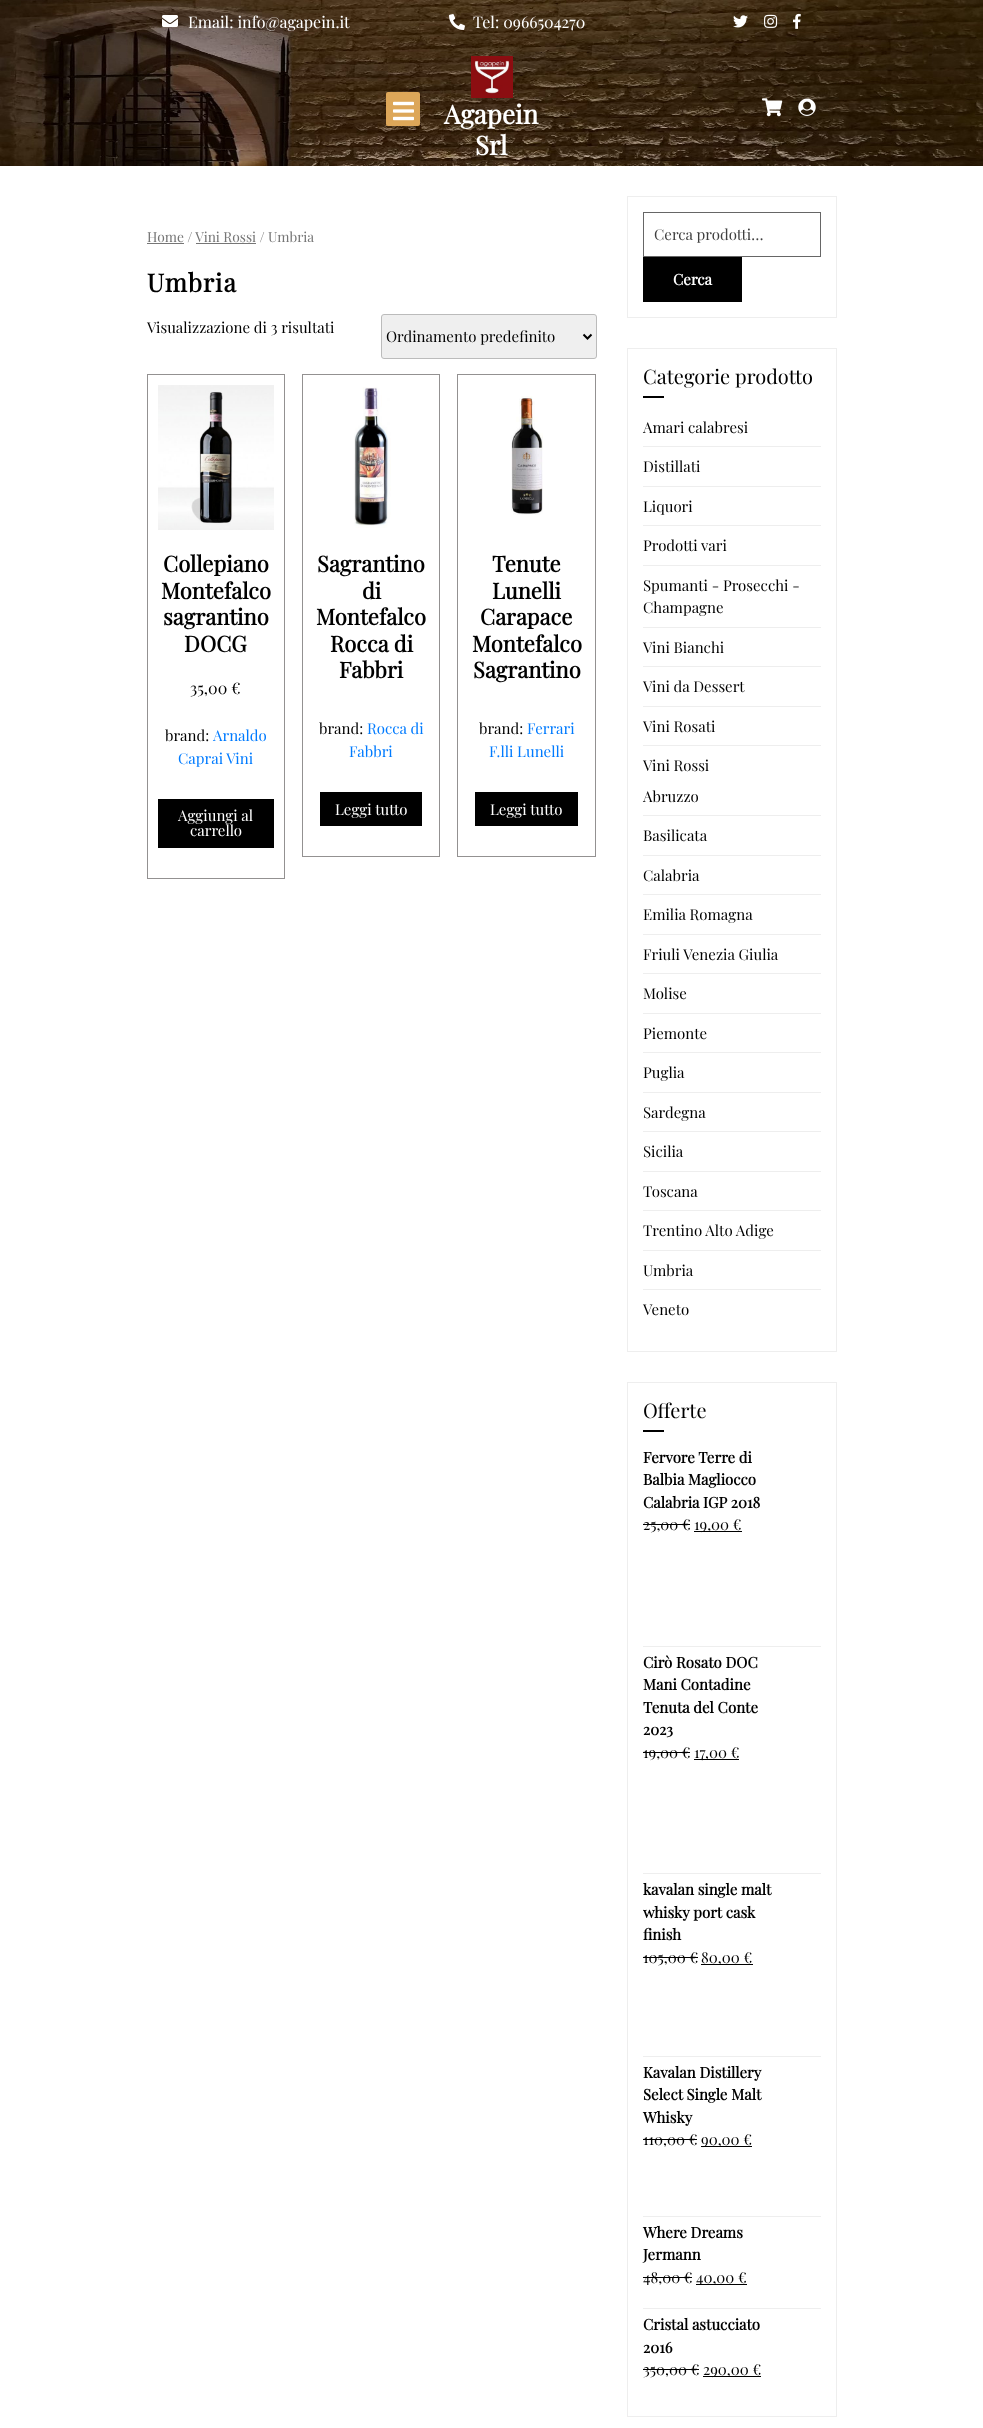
(async () => {
    const canvas = document.querySelector("canvas");
    canvas.width = 983;
    canvas.height = 2428;
    const context = canvas.getContext("2d");
    context.miterLimit = 4;
    context.fontKerning = "normal";
    function write(s, x, y, font, color) {
        context.font = font;
        context.fillStyle = color;
        context.fillText(s, x, y);
    }
    function block(x, y, w, h, color) {
        context.fillStyle = color;
        context.fillRect(x, y, w, h);
    }
    function card(x, y, w, h, r, color) {
        context.fillStyle = color;
        context.beginPath();
        context.roundRect(x, y, w, h, r);
        context.fill();
    }
    async function photo(src, x, y, w, h) {
        const img = new Image();
        img.src = src;
        await img.decode();
        context.drawImage(img, x, y, w, h);
    }

    block(0, 0, 983, 2428, "rgb(255, 255, 255)");
    await photo("media/1.png", 0, 0, 983, 166);
    await photo("media/2.png", 162, 15, 16, 12);
    write("Email: info@agapein.it", 188, 28, "16px Playfair Display", "rgb(255, 255, 255)");
    await photo("media/3.png", 449, 14, 16, 16);
    write("Tel: 0966504270", 473, 28, "16px Playfair Display", "rgb(255, 255, 255)");
    await photo("media/4.png", 733, 15, 15, 13);
    await photo("media/5.png", 764, 14, 14, 14);
    await photo("media/6.png", 793, 13, 8, 16);
    card(386, 92, 34, 34, 2, "rgb(221, 167, 89)");
    await photo("media/7.png", 393, 101, 21, 20);
    await photo("media/8.png", 471, 56, 42, 42);
    write("Agapein", 444, 124, "bold 26px Playfair Display", "rgb(255, 255, 255)");
    write("Srl", 475, 155, "bold 26px Playfair Display", "rgb(255, 255, 255)");
    await photo("media/9.png", 762, 98, 21, 19);
    await photo("media/10.png", 798, 98, 18, 18);
    write("Home / Vini Rossi / Umbria", 147, 242, "13.75px Playfair Display", "rgb(118, 118, 118)");
    block(147, 243, 37, 1, "rgb(118, 118, 118)");
    block(196, 243, 60, 1, "rgb(118, 118, 118)");
    context.letterSpacing = "1px";
    write("Umbria", 147, 292, "bold 25px Playfair Display", "rgb(0, 0, 0)");
    context.letterSpacing = "0px";
    write("Visualizzazione di 3 risultati", 147, 333, "15px Playfair Display", "rgb(0, 0, 0)");
    context.fillStyle = "rgb(239, 239, 239)";
    context.beginPath();
    context.roundRect(381.5, 314.5, 215, 44, 2.5);
    context.fill();
    context.strokeStyle = "rgb(187, 187, 187)";
    context.stroke();
    context.beginPath();
    context.moveTo(583.5, 334.5);
    context.lineTo(587.5, 338.5);
    context.lineTo(591.5, 334.5);
    context.strokeStyle = "rgb(0, 0, 0)";
    context.lineWidth = 2;
    context.stroke();
    write("Ordinamento predefinito", 386, 342, "15px Playfair Display", "rgb(0, 0, 0)");
    context.strokeStyle = "rgb(147, 145, 145)";
    context.lineWidth = 1;
    context.strokeRect(147.5, 374.5, 137, 504);
    await photo("media/11.png", 158, 385, 116, 145);
    write("Collepiano", 163, 572, "bold 22px Playfair Display", "rgb(0, 0, 0)");
    write("Montefalco", 161, 599, "bold 22px Playfair Display", "rgb(0, 0, 0)");
    write("sagrantino", 163, 625, "bold 22px Playfair Display", "rgb(0, 0, 0)");
    write("DOCG", 184, 652, "bold 22px Playfair Display", "rgb(0, 0, 0)");
    write("35,00 €", 190, 694, "16px Playfair Display", "rgb(0, 0, 0)");
    write("brand:", 165, 741, "15px Playfair Display", "rgb(0, 0, 0)");
    write("Arnaldo", 213, 741, "15px Playfair Display", "rgb(0, 123, 255)");
    write("Caprai Vini", 178, 764, "15px Playfair Display", "rgb(0, 123, 255)");
    block(158, 799, 116, 49, "rgb(0, 0, 0)");
    write("Aggiungi al", 178, 821, "15px Playfair Display", "rgb(255, 255, 255)");
    write("carrello", 190, 836, "15px Playfair Display", "rgb(255, 255, 255)");
    context.strokeRect(302.5, 374.5, 137, 482);
    await photo("media/12.png", 354, 387, 37, 141);
    write("Sagrantino", 317, 572, "bold 22px Playfair Display", "rgb(0, 0, 0)");
    write("di", 362, 599, "bold 22px Playfair Display", "rgb(0, 0, 0)");
    write("Montefalco", 316, 625, "bold 22px Playfair Display", "rgb(0, 0, 0)");
    write("Rocca di", 330, 652, "bold 22px Playfair Display", "rgb(0, 0, 0)");
    write("Fabbri", 339, 678, "bold 22px Playfair Display", "rgb(0, 0, 0)");
    write("brand:", 319, 734, "15px Playfair Display", "rgb(0, 0, 0)");
    write("Rocca di", 367, 734, "15px Playfair Display", "rgb(0, 123, 255)");
    write("Fabbri", 349, 757, "15px Playfair Display", "rgb(0, 123, 255)");
    block(320, 792, 102, 34, "rgb(0, 0, 0)");
    write("Leggi tutto", 335, 815, "15px Playfair Display", "rgb(255, 255, 255)");
    context.strokeRect(457.5, 374.5, 138, 482);
    await photo("media/13.png", 511, 396, 32, 119);
    write("Tenute", 492, 572, "bold 22px Playfair Display", "rgb(0, 0, 0)");
    write("Lunelli", 492, 599, "bold 22px Playfair Display", "rgb(0, 0, 0)");
    write("Carapace", 480, 625, "bold 22px Playfair Display", "rgb(0, 0, 0)");
    write("Montefalco", 472, 652, "bold 22px Playfair Display", "rgb(0, 0, 0)");
    write("Sagrantino", 473, 678, "bold 22px Playfair Display", "rgb(0, 0, 0)");
    write("brand:", 479, 734, "15px Playfair Display", "rgb(0, 0, 0)");
    write("Ferrari", 527, 734, "15px Playfair Display", "rgb(0, 123, 255)");
    write("F.lli Lunelli", 489, 757, "15px Playfair Display", "rgb(0, 123, 255)");
    block(475, 792, 103, 34, "rgb(0, 0, 0)");
    write("Leggi tutto", 490, 815, "15px Playfair Display", "rgb(255, 255, 255)");
    context.strokeStyle = "rgb(238, 238, 238)";
    context.strokeRect(627.5, 196.5, 209, 121);
    context.strokeStyle = "rgb(102, 102, 102)";
    context.strokeRect(643.5, 212.5, 177, 44);
    write("Cerca prodotti…", 654, 240, "15px Playfair Display", "rgb(63, 63, 63)");
    block(643, 257, 99, 45, "rgb(0, 0, 0)");
    write("Cerca", 673, 285, "bold 15px Playfair Display", "rgb(255, 255, 255)");
    context.strokeStyle = "rgb(238, 238, 238)";
    context.strokeRect(627.5, 348.5, 209, 1003);
    write("Categorie prodotto", 643, 384, "20px Playfair Display", "rgb(0, 0, 0)");
    block(643, 396, 21, 2, "rgb(0, 0, 0)");
    block(643, 446, 178, 1, "rgb(238, 238, 238)");
    write("Amari calabresi", 643, 433, "15px Playfair Display", "rgb(0, 0, 0)");
    block(643, 486, 178, 1, "rgb(238, 238, 238)");
    write("Distillati", 643, 472, "15px Playfair Display", "rgb(0, 0, 0)");
    block(643, 525, 178, 1, "rgb(238, 238, 238)");
    write("Liquori", 643, 512, "15px Playfair Display", "rgb(0, 0, 0)");
    block(643, 565, 178, 1, "rgb(238, 238, 238)");
    write("Prodotti vari", 643, 551, "15px Playfair Display", "rgb(0, 0, 0)");
    block(643, 627, 178, 1, "rgb(238, 238, 238)");
    write("Spumanti - Prosecchi -", 643, 591, "15px Playfair Display", "rgb(0, 0, 0)");
    write("Champagne", 643, 613, "15px Playfair Display", "rgb(0, 0, 0)");
    block(643, 666, 178, 1, "rgb(238, 238, 238)");
    write("Vini Bianchi", 643, 653, "15px Playfair Display", "rgb(0, 0, 0)");
    block(643, 706, 178, 1, "rgb(238, 238, 238)");
    write("Vini da Dessert", 643, 692, "15px Playfair Display", "rgb(0, 0, 0)");
    block(643, 745, 178, 1, "rgb(238, 238, 238)");
    write("Vini Rosati", 643, 732, "15px Playfair Display", "rgb(0, 0, 0)");
    write("Vini Rossi", 643, 771, "15px Playfair Display", "rgb(0, 0, 0)");
    block(643, 815, 178, 1, "rgb(238, 238, 238)");
    write("Abruzzo", 643, 802, "15px Playfair Display", "rgb(0, 0, 0)");
    block(643, 855, 178, 1, "rgb(238, 238, 238)");
    write("Basilicata", 643, 841, "15px Playfair Display", "rgb(0, 0, 0)");
    block(643, 894, 178, 1, "rgb(238, 238, 238)");
    write("Calabria", 643, 881, "15px Playfair Display", "rgb(0, 0, 0)");
    block(643, 934, 178, 1, "rgb(238, 238, 238)");
    write("Emilia Romagna", 643, 920, "15px Playfair Display", "rgb(0, 0, 0)");
    block(643, 973, 178, 1, "rgb(238, 238, 238)");
    write("Friuli Venezia Giulia", 643, 960, "15px Playfair Display", "rgb(0, 0, 0)");
    block(643, 1013, 178, 1, "rgb(238, 238, 238)");
    write("Molise", 643, 999, "15px Playfair Display", "rgb(0, 0, 0)");
    block(643, 1052, 178, 1, "rgb(238, 238, 238)");
    write("Piemonte", 643, 1039, "15px Playfair Display", "rgb(0, 0, 0)");
    block(643, 1092, 178, 1, "rgb(238, 238, 238)");
    write("Puglia", 643, 1078, "15px Playfair Display", "rgb(0, 0, 0)");
    block(643, 1131, 178, 1, "rgb(238, 238, 238)");
    write("Sardegna", 643, 1118, "15px Playfair Display", "rgb(0, 0, 0)");
    block(643, 1171, 178, 1, "rgb(238, 238, 238)");
    write("Sicilia", 643, 1157, "15px Playfair Display", "rgb(0, 0, 0)");
    block(643, 1210, 178, 1, "rgb(238, 238, 238)");
    write("Toscana", 643, 1197, "15px Playfair Display", "rgb(0, 0, 0)");
    block(643, 1250, 178, 1, "rgb(238, 238, 238)");
    write("Trentino Alto Adige", 643, 1236, "15px Playfair Display", "rgb(0, 0, 0)");
    block(643, 1289, 178, 1, "rgb(238, 238, 238)");
    write("Umbria", 643, 1276, "15px Playfair Display", "rgb(0, 0, 0)");
    write("Veneto", 643, 1315, "15px Playfair Display", "rgb(0, 0, 0)");
    context.strokeRect(627.5, 1382.5, 209, 1034);
    write("Offerte", 643, 1418, "20px Playfair Display", "rgb(0, 0, 0)");
    block(643, 1430, 21, 2, "rgb(0, 0, 0)");
    block(643, 1646, 178, 1, "rgb(238, 238, 238)");
    write("Fervore Terre di", 643, 1463, "bold 15px Playfair Display", "rgb(0, 0, 0)");
    write("Balbia Magliocco", 643, 1485, "bold 15px Playfair Display", "rgb(0, 0, 0)");
    write("Calabria IGP 2018", 643, 1508, "bold 15px Playfair Display", "rgb(0, 0, 0)");
    write("25,00 €", 643, 1530, "15px Playfair Display", "rgb(0, 0, 0)");
    block(643, 1524, 47, 1, "rgb(0, 0, 0)");
    block(694, 1531, 48, 1, "rgb(0, 0, 0)");
    write("19,00 €", 694, 1530, "15px Playfair Display", "rgb(0, 0, 0)");
    block(643, 1873, 178, 1, "rgb(238, 238, 238)");
    write("Cirò Rosato DOC", 643, 1668, "bold 15px Playfair Display", "rgb(0, 0, 0)");
    write("Mani Contadine", 643, 1690, "bold 15px Playfair Display", "rgb(0, 0, 0)");
    write("Tenuta del Conte", 643, 1713, "bold 15px Playfair Display", "rgb(0, 0, 0)");
    write("2023", 643, 1735, "bold 15px Playfair Display", "rgb(0, 0, 0)");
    write("19,00 €", 643, 1758, "15px Playfair Display", "rgb(0, 0, 0)");
    block(643, 1752, 47, 1, "rgb(0, 0, 0)");
    block(694, 1759, 45, 1, "rgb(0, 0, 0)");
    write("17,00 €", 694, 1758, "15px Playfair Display", "rgb(0, 0, 0)");
    block(643, 2056, 178, 1, "rgb(238, 238, 238)");
    write("kavalan single malt", 643, 1895, "bold 15px Playfair Display", "rgb(0, 0, 0)");
    write("whisky port cask", 643, 1918, "bold 15px Playfair Display", "rgb(0, 0, 0)");
    write("finish", 643, 1940, "bold 15px Playfair Display", "rgb(0, 0, 0)");
    write("105,00 €", 643, 1963, "15px Playfair Display", "rgb(0, 0, 0)");
    block(643, 1957, 55, 1, "rgb(0, 0, 0)");
    block(701, 1964, 52, 1, "rgb(0, 0, 0)");
    write("80,00 €", 701, 1963, "15px Playfair Display", "rgb(0, 0, 0)");
    block(643, 2216, 178, 1, "rgb(238, 238, 238)");
    write("Kavalan Distillery", 643, 2078, "bold 15px Playfair Display", "rgb(0, 0, 0)");
    write("Select Single Malt", 643, 2100, "bold 15px Playfair Display", "rgb(0, 0, 0)");
    write("Whisky", 643, 2123, "bold 15px Playfair Display", "rgb(0, 0, 0)");
    write("110,00 €", 643, 2145, "15px Playfair Display", "rgb(0, 0, 0)");
    block(643, 2139, 54, 1, "rgb(0, 0, 0)");
    block(701, 2146, 51, 1, "rgb(0, 0, 0)");
    write("90,00 €", 701, 2145, "15px Playfair Display", "rgb(0, 0, 0)");
    block(643, 2308, 178, 1, "rgb(238, 238, 238)");
    write("Where Dreams", 643, 2238, "bold 15px Playfair Display", "rgb(0, 0, 0)");
    write("Jermann", 643, 2260, "bold 15px Playfair Display", "rgb(0, 0, 0)");
    write("48,00 €", 643, 2283, "15px Playfair Display", "rgb(0, 0, 0)");
    block(643, 2277, 49, 1, "rgb(0, 0, 0)");
    block(696, 2284, 51, 1, "rgb(0, 0, 0)");
    write("40,00 €", 696, 2283, "15px Playfair Display", "rgb(0, 0, 0)");
    write("Cristal astucciato", 643, 2330, "bold 15px Playfair Display", "rgb(0, 0, 0)");
    write("2016", 643, 2353, "bold 15px Playfair Display", "rgb(0, 0, 0)");
    write("350,00 €", 643, 2375, "15px Playfair Display", "rgb(0, 0, 0)");
    block(643, 2369, 56, 1, "rgb(0, 0, 0)");
    block(703, 2376, 58, 1, "rgb(0, 0, 0)");
    write("290,00 €", 703, 2375, "15px Playfair Display", "rgb(0, 0, 0)");
})();
